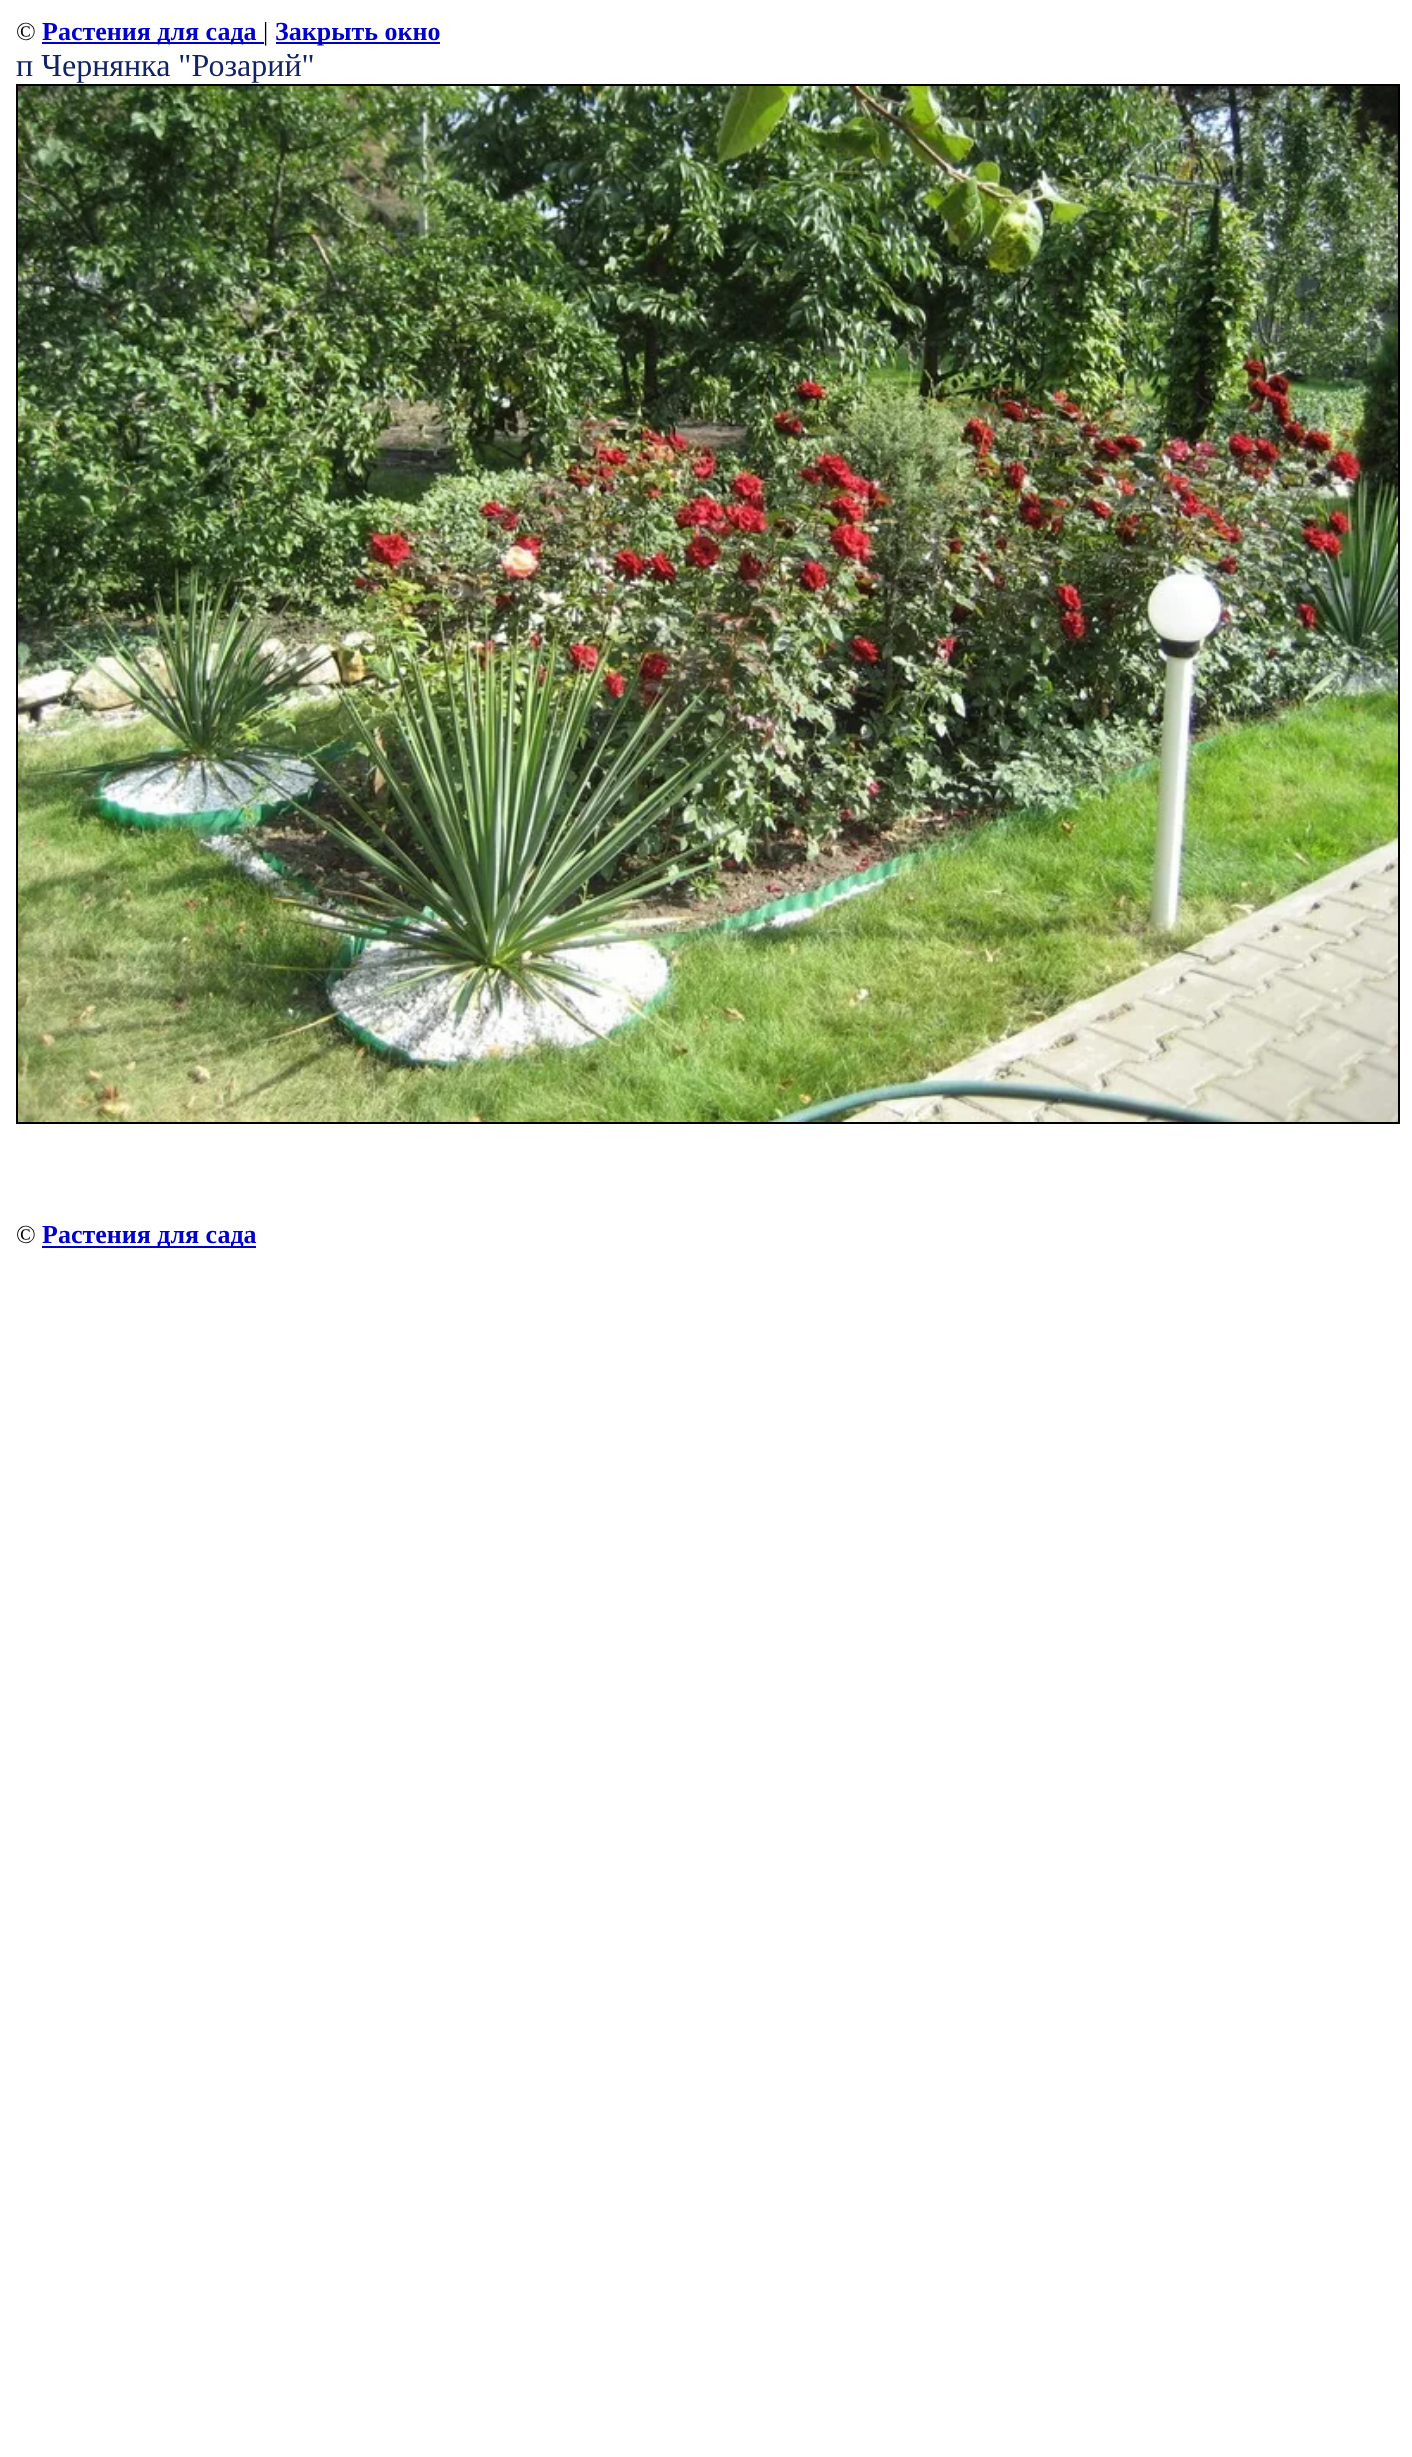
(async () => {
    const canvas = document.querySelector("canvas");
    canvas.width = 1412;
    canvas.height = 2457;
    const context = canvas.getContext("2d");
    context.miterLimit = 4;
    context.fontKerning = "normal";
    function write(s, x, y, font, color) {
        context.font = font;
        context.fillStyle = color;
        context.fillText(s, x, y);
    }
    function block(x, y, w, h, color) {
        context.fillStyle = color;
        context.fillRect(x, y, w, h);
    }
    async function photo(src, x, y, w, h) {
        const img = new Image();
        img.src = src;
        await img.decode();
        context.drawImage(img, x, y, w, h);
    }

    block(0, 0, 1412, 2457, "rgb(255, 255, 255)");
    write("©", 16, 40, "26px Liberation Serif", "rgb(0, 0, 0)");
    block(42, 42, 222, 2, "rgb(0, 0, 204)");
    write("Растения для сада", 42, 40, "bold 26px Liberation Serif", "rgb(0, 0, 204)");
    write("|", 263, 40, "26px Liberation Serif", "rgb(0, 0, 0)");
    block(276, 42, 164, 2, "rgb(0, 0, 204)");
    write("Закрыть окно", 275, 40, "bold 26px Liberation Serif", "rgb(0, 0, 204)");
    write("п Чернянка \"Розарий\"", 16, 76, "32px Liberation Serif", "rgb(17, 35, 101)");
    context.strokeStyle = "rgb(0, 0, 0)";
    context.lineWidth = 2;
    context.strokeRect(17, 85, 1382, 1038);
    await photo("media/1.png", 18, 86, 1380, 1036);
    write("©", 16, 1243, "26px Liberation Serif", "rgb(0, 0, 0)");
    block(42, 1246, 214, 2, "rgb(0, 0, 204)");
    write("Растения для сада", 42, 1243, "bold 26px Liberation Serif", "rgb(0, 0, 204)");
})();
